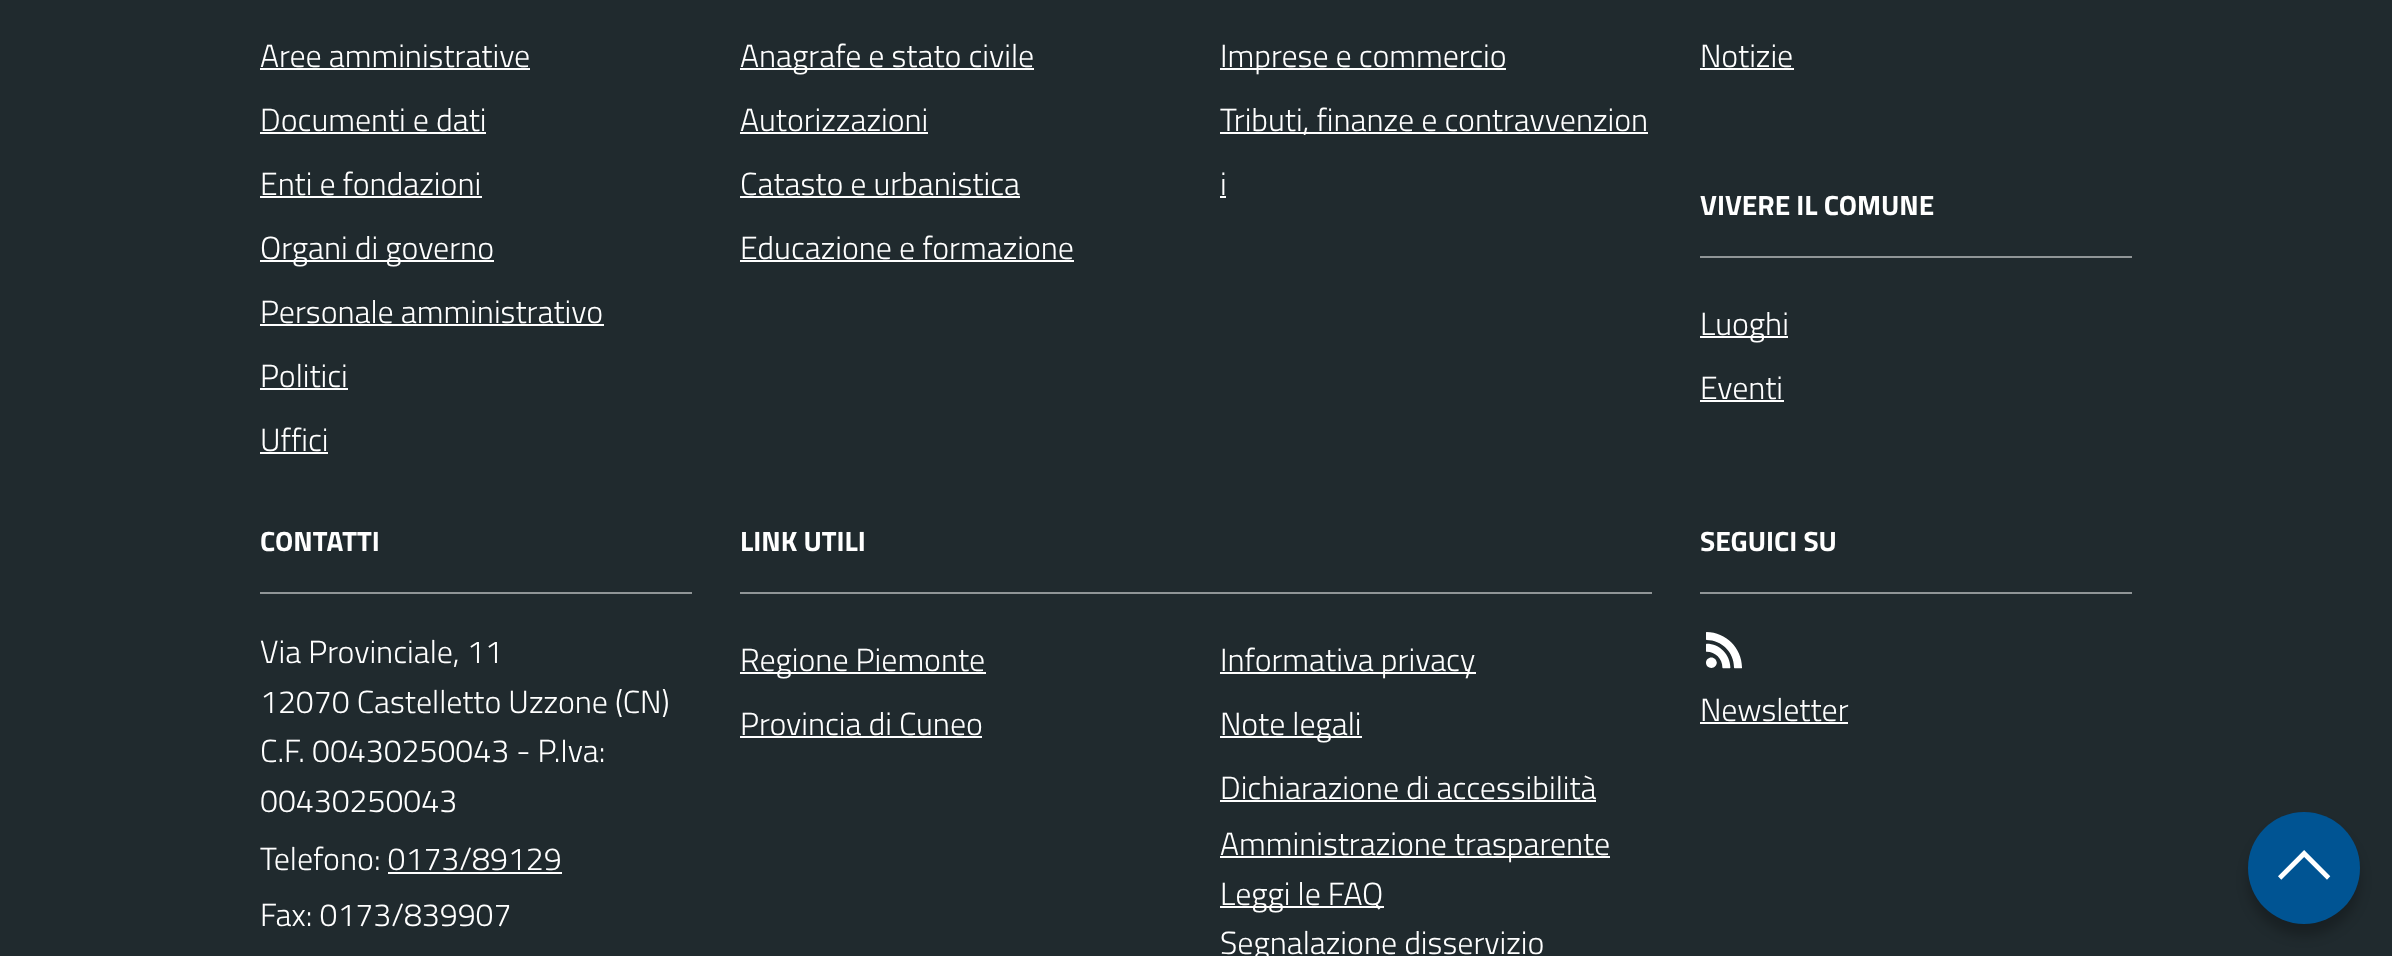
(async () => {
    const canvas = document.querySelector("canvas");
    canvas.width = 2392;
    canvas.height = 956;
    const context = canvas.getContext("2d");
    context.miterLimit = 4;
    context.fontKerning = "normal";
    function write(s, x, y, font, color) {
        context.font = font;
        context.fillStyle = color;
        context.fillText(s, x, y);
    }
    function block(x, y, w, h, color) {
        context.fillStyle = color;
        context.fillRect(x, y, w, h);
    }
    async function photo(src, x, y, w, h) {
        const img = new Image();
        img.src = src;
        await img.decode();
        context.drawImage(img, x, y, w, h);
    }

    block(0, 0, 2392, 956, "rgb(32, 42, 46)");
    write("Aree amministrative", 260, 67, "300 32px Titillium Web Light", "rgb(255, 255, 255)");
    block(260, 68, 270, 2, "rgb(255, 255, 255)");
    write("Documenti e dati", 260, 131, "300 32px Titillium Web Light", "rgb(255, 255, 255)");
    block(260, 132, 226, 2, "rgb(255, 255, 255)");
    write("Enti e fondazioni", 260, 195, "300 32px Titillium Web Light", "rgb(255, 255, 255)");
    block(260, 196, 222, 2, "rgb(255, 255, 255)");
    block(260, 260, 234, 2, "rgb(255, 255, 255)");
    write("Organi di governo", 260, 259, "300 32px Titillium Web Light", "rgb(255, 255, 255)");
    write("Personale amministrativo", 260, 323, "300 32px Titillium Web Light", "rgb(255, 255, 255)");
    block(260, 324, 344, 2, "rgb(255, 255, 255)");
    write("Politici", 260, 387, "300 32px Titillium Web Light", "rgb(255, 255, 255)");
    block(260, 388, 88, 2, "rgb(255, 255, 255)");
    write("Uffici", 260, 451, "300 32px Titillium Web Light", "rgb(255, 255, 255)");
    block(260, 452, 68, 2, "rgb(255, 255, 255)");
    block(740, 68, 294, 2, "rgb(255, 255, 255)");
    write("Anagrafe e stato civile", 740, 67, "300 32px Titillium Web Light", "rgb(255, 255, 255)");
    write("Autorizzazioni", 740, 131, "300 32px Titillium Web Light", "rgb(255, 255, 255)");
    block(740, 132, 188, 2, "rgb(255, 255, 255)");
    write("Catasto e urbanistica", 740, 195, "300 32px Titillium Web Light", "rgb(255, 255, 255)");
    block(740, 196, 280, 2, "rgb(255, 255, 255)");
    write("Educazione e formazione", 740, 259, "300 32px Titillium Web Light", "rgb(255, 255, 255)");
    block(740, 260, 334, 2, "rgb(255, 255, 255)");
    block(1220, 68, 286, 2, "rgb(255, 255, 255)");
    write("Imprese e commercio", 1220, 67, "300 32px Titillium Web Light", "rgb(255, 255, 255)");
    block(1220, 132, 428, 2, "rgb(255, 255, 255)");
    write("Tributi, finanze e contravvenzion", 1220, 131, "300 32px Titillium Web Light", "rgb(255, 255, 255)");
    write("i", 1220, 195, "300 32px Titillium Web Light", "rgb(255, 255, 255)");
    block(1220, 196, 6, 2, "rgb(255, 255, 255)");
    write("Notizie", 1700, 67, "300 32px Titillium Web Light", "rgb(255, 255, 255)");
    block(1700, 68, 94, 2, "rgb(255, 255, 255)");
    block(1700, 256, 432, 2, "rgb(144, 149, 151)");
    write("VIVERE IL COMUNE", 1700, 215, "bold 28px Titillium Web", "rgb(255, 255, 255)");
    block(1700, 336, 88, 2, "rgb(255, 255, 255)");
    write("Luoghi", 1700, 335, "300 32px Titillium Web Light", "rgb(255, 255, 255)");
    write("Eventi", 1700, 399, "300 32px Titillium Web Light", "rgb(255, 255, 255)");
    block(1700, 400, 84, 2, "rgb(255, 255, 255)");
    block(260, 592, 432, 2, "rgb(144, 149, 151)");
    write("CONTATTI", 260, 551, "bold 28px Titillium Web", "rgb(255, 255, 255)");
    write("Via Provinciale, 11", 260, 663, "300 32px Titillium Web Light", "rgb(255, 255, 255)");
    write("12070 Castelletto Uzzone (CN)", 260, 713, "300 32px Titillium Web Light", "rgb(255, 255, 255)");
    write("C.F. 00430250043 - P.Iva:", 260, 762, "300 32px Titillium Web Light", "rgb(255, 255, 255)");
    write("00430250043", 260, 812, "300 32px Titillium Web Light", "rgb(255, 255, 255)");
    write("Telefono: 0173/89129", 260, 870, "300 32px Titillium Web Light", "rgb(255, 255, 255)");
    block(388, 872, 174, 2, "rgb(255, 255, 255)");
    write("Fax: 0173/839907", 260, 926, "300 32px Titillium Web Light", "rgb(255, 255, 255)");
    block(740, 592, 912, 2, "rgb(144, 149, 151)");
    write("LINK UTILI", 740, 551, "bold 28px Titillium Web", "rgb(255, 255, 255)");
    block(740, 672, 246, 2, "rgb(255, 255, 255)");
    write("Regione Piemonte", 740, 671, "300 32px Titillium Web Light", "rgb(255, 255, 255)");
    write("Provincia di Cuneo", 740, 735, "300 32px Titillium Web Light", "rgb(255, 255, 255)");
    block(740, 736, 242, 2, "rgb(255, 255, 255)");
    block(1220, 672, 256, 2, "rgb(255, 255, 255)");
    write("Informativa privacy", 1220, 671, "300 32px Titillium Web Light", "rgb(255, 255, 255)");
    block(1220, 736, 142, 2, "rgb(255, 255, 255)");
    write("Note legali", 1220, 735, "300 32px Titillium Web Light", "rgb(255, 255, 255)");
    write("Dichiarazione di accessibilità", 1220, 799, "300 32px Titillium Web Light", "rgb(255, 255, 255)");
    block(1220, 800, 376, 2, "rgb(255, 255, 255)");
    block(1220, 856, 390, 2, "rgb(255, 255, 255)");
    write("Amministrazione trasparente", 1220, 855, "300 32px Titillium Web Light", "rgb(255, 255, 255)");
    block(1220, 906, 164, 2, "rgb(255, 255, 255)");
    write("Leggi le FAQ", 1220, 905, "300 32px Titillium Web Light", "rgb(255, 255, 255)");
    write("Segnalazione disservizio", 1220, 954, "300 32px Titillium Web Light", "rgb(255, 255, 255)");
    block(1700, 592, 432, 2, "rgb(144, 149, 151)");
    write("SEGUICI SU", 1700, 551, "bold 28px Titillium Web", "rgb(255, 255, 255)");
    await photo("media/1.png", 1706, 632, 36, 37);
    write("Newsletter", 1700, 721, "300 32px Titillium Web Light", "rgb(255, 255, 255)");
    block(1700, 722, 148, 2, "rgb(255, 255, 255)");
    context.fillStyle = "rgba(0, 0, 0, 0.23)";
    context.filter = "blur(6px)";
    context.beginPath();
    context.roundRect(2248, 824, 112, 112, 56);
    context.fill();
    context.filter = "none";
    context.fillStyle = "rgb(0, 84, 147)";
    context.beginPath();
    context.arc(2304, 868, 56, 0, Math.PI * 2);
    context.fill();
    await photo("media/2.png", 2278, 850, 53, 30);
})();
